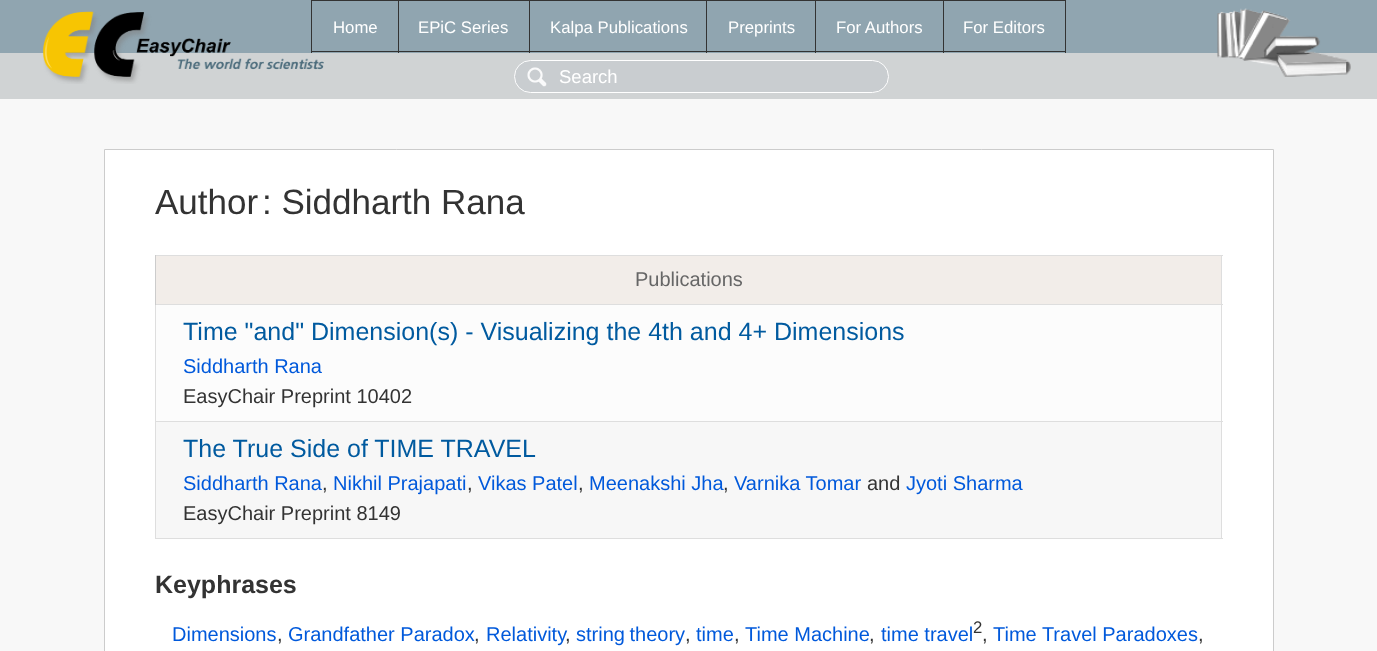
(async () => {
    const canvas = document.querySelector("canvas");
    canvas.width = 1377;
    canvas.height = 651;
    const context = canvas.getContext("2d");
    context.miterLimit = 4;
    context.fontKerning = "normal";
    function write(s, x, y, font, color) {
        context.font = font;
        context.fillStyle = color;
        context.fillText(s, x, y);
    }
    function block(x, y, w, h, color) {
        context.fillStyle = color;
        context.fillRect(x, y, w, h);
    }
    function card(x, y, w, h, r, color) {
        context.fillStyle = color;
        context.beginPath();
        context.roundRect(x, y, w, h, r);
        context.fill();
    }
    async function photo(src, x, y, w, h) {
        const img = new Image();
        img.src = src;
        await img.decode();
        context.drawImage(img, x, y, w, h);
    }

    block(0, 0, 1377, 651, "rgb(144, 165, 176)");
    block(0, 54, 1376, 44, "rgb(208, 211, 212)");
    block(0, 53, 1377, 1, "rgb(208, 211, 212)");
    await photo("media/1.png", 43, 11, 281, 73);
    block(943, 0, 123, 1, "rgb(51, 51, 51)");
    block(1065, 0, 1, 53, "rgb(51, 51, 51)");
    block(943, 51, 123, 1, "rgb(51, 51, 51)");
    block(943, 0, 1, 53, "rgb(51, 51, 51)");
    block(815, 0, 129, 1, "rgb(51, 51, 51)");
    block(815, 51, 129, 1, "rgb(51, 51, 51)");
    block(815, 0, 1, 53, "rgb(51, 51, 51)");
    block(706, 0, 110, 1, "rgb(51, 51, 51)");
    block(706, 51, 110, 1, "rgb(51, 51, 51)");
    block(706, 0, 1, 53, "rgb(51, 51, 51)");
    block(529, 0, 179, 1, "rgb(51, 51, 51)");
    block(529, 51, 179, 1, "rgb(51, 51, 51)");
    block(529, 0, 1, 53, "rgb(51, 51, 51)");
    block(398, 0, 132, 1, "rgb(51, 51, 51)");
    block(398, 51, 132, 1, "rgb(51, 51, 51)");
    block(398, 0, 1, 53, "rgb(51, 51, 51)");
    block(311, 0, 88, 1, "rgb(51, 51, 51)");
    block(311, 51, 88, 1, "rgb(51, 51, 51)");
    block(311, 0, 1, 53, "rgb(51, 51, 51)");
    write("Home", 333, 33, "16.75px Liberation Sans", "rgb(255, 255, 255)");
    write("EPiC Series", 418, 33, "16.75px Liberation Sans", "rgb(255, 255, 255)");
    write("Kalpa Publications", 550, 33, "16.75px Liberation Sans", "rgb(255, 255, 255)");
    write("Preprints", 728, 33, "16.75px Liberation Sans", "rgb(255, 255, 255)");
    write("For Authors", 836, 33, "16.75px Liberation Sans", "rgb(255, 255, 255)");
    write("For Editors", 963, 33, "16.75px Liberation Sans", "rgb(255, 255, 255)");
    await photo("media/2.png", 1217, 8, 134, 69);
    block(1376, 53, 1, 46, "rgb(208, 211, 212)");
    block(0, 98, 1377, 1, "rgb(208, 211, 212)");
    card(514, 60, 375, 33, 16.5, "rgb(201, 205, 208)");
    await photo("media/3.png", 527, 67, 20, 20);
    context.beginPath();
    context.roundRect(514.5, 60.5, 374, 32, 16);
    context.strokeStyle = "rgb(255, 255, 255)";
    context.stroke();
    write("Search", 559, 83, "18.5px Liberation Sans", "rgb(255, 255, 255)");
    block(0, 99, 1377, 552, "rgb(248, 248, 248)");
    context.fillStyle = "rgb(255, 255, 255)";
    context.beginPath();
    context.rect(104.5, 149.5, 1169, 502);
    context.fill();
    context.strokeStyle = "rgb(204, 204, 204)";
    context.stroke();
    write("Author", 155, 214, "35px Liberation Sans", "rgb(51, 51, 51)");
    write(": Siddharth Rana", 262, 214, "35px Liberation Sans", "rgb(51, 51, 51)");
    block(155, 255, 1068, 1, "rgb(222, 222, 222)");
    block(1221, 255, 1, 284, "rgb(222, 222, 222)");
    block(155, 538, 1068, 1, "rgb(222, 222, 222)");
    block(155, 305, 1, 234, "rgb(222, 222, 222)");
    block(156, 256, 1065, 48, "rgb(242, 237, 233)");
    block(155, 304, 1068, 1, "rgb(222, 222, 222)");
    block(155, 255, 1, 50, "rgb(204, 204, 204)");
    write("Publications", 635, 286, "20px Liberation Sans", "rgb(102, 102, 102)");
    block(156, 305, 1065, 116, "rgb(252, 252, 252)");
    block(155, 421, 1068, 1, "rgb(222, 222, 222)");
    write("Time \"and\" Dimension(s) - Visualizing the 4th and 4+ Dimensions", 183, 340, "25px Liberation Sans", "rgb(0, 90, 159)");
    write("Siddharth Rana", 183, 373, "20px Liberation Sans", "rgb(0, 89, 219)");
    write("EasyChair Preprint 10402", 183, 403, "20px Liberation Sans", "rgb(51, 51, 51)");
    block(156, 422, 1065, 116, "rgb(247, 247, 247)");
    write("The True Side of TIME TRAVEL", 183, 457, "25px Liberation Sans", "rgb(0, 90, 159)");
    write("Siddharth Rana", 183, 490, "20px Liberation Sans", "rgb(0, 89, 219)");
    write(",", 322, 490, "20px Liberation Sans", "rgb(51, 51, 51)");
    write("Nikhil Prajapati", 333, 490, "20px Liberation Sans", "rgb(0, 89, 219)");
    write(",", 467, 490, "20px Liberation Sans", "rgb(51, 51, 51)");
    write("Vikas Patel", 478, 490, "20px Liberation Sans", "rgb(0, 89, 219)");
    write(",", 578, 490, "20px Liberation Sans", "rgb(51, 51, 51)");
    write("Meenakshi Jha", 589, 490, "20px Liberation Sans", "rgb(0, 89, 219)");
    write(",", 723, 490, "20px Liberation Sans", "rgb(51, 51, 51)");
    write("Varnika Tomar", 734, 490, "20px Liberation Sans", "rgb(0, 89, 219)");
    write("and", 867, 490, "20px Liberation Sans", "rgb(51, 51, 51)");
    write("Jyoti Sharma", 906, 490, "20px Liberation Sans", "rgb(0, 89, 219)");
    write("EasyChair Preprint 8149", 183, 520, "20px Liberation Sans", "rgb(51, 51, 51)");
    write("Keyphrases", 155, 593, "bold 25px Liberation Sans", "rgb(51, 51, 51)");
    write("Dimensions", 172, 641, "20px Liberation Sans", "rgb(0, 89, 219)");
    write(",", 277, 641, "20px Liberation Sans", "rgb(51, 51, 51)");
    write("Grandfather Paradox", 288, 641, "20px Liberation Sans", "rgb(0, 89, 219)");
    write(",", 474, 641, "20px Liberation Sans", "rgb(51, 51, 51)");
    write("Relativity", 486, 641, "20px Liberation Sans", "rgb(0, 89, 219)");
    write(",", 565, 641, "20px Liberation Sans", "rgb(51, 51, 51)");
    context.wordSpacing = "-1px";
    write("string theory", 576, 641, "20px Liberation Sans", "rgb(0, 89, 219)");
    context.wordSpacing = "0px";
    write(",", 685, 641, "20px Liberation Sans", "rgb(51, 51, 51)");
    write("time", 696, 641, "20px Liberation Sans", "rgb(0, 89, 219)");
    write(",", 734, 641, "20px Liberation Sans", "rgb(51, 51, 51)");
    write("Time Machine", 745, 641, "20px Liberation Sans", "rgb(0, 89, 219)");
    write(",", 869, 641, "20px Liberation Sans", "rgb(51, 51, 51)");
    write("time travel", 881, 641, "20px Liberation Sans", "rgb(0, 89, 219)");
    write("2", 973, 633, "16.75px Liberation Sans", "rgb(51, 51, 51)");
    write(",", 982, 641, "20px Liberation Sans", "rgb(51, 51, 51)");
    write("Time Travel Paradoxes", 993, 641, "20px Liberation Sans", "rgb(0, 89, 219)");
    write(",", 1198, 641, "20px Liberation Sans", "rgb(51, 51, 51)");
})();
